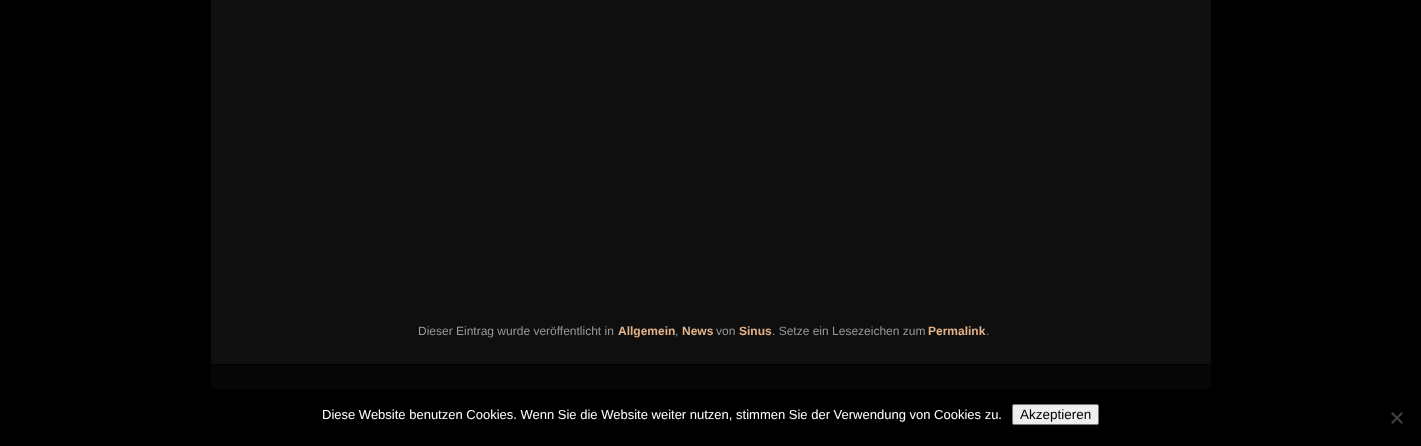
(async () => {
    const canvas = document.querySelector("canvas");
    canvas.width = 1421;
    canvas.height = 446;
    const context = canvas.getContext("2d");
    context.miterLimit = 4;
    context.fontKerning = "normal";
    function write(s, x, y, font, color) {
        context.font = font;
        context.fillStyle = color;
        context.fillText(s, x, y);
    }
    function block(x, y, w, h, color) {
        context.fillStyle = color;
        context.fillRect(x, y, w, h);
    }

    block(0, 0, 1421, 446, "rgb(0, 0, 0)");
    block(211, 0, 1000, 364, "rgb(15, 15, 15)");
    write("Dieser Eintrag wurde veröffentlicht in", 418, 335, "12px Liberation Sans", "rgb(153, 153, 153)");
    write("Allgemein", 618, 335, "bold 12px Liberation Sans", "rgb(226, 178, 138)");
    write(",", 675, 335, "12px Liberation Sans", "rgb(153, 153, 153)");
    write("News", 682, 335, "bold 12px Liberation Sans", "rgb(226, 178, 138)");
    write("von", 716, 335, "12px Liberation Sans", "rgb(153, 153, 153)");
    write("Sinus", 739, 335, "bold 12px Liberation Sans", "rgb(226, 178, 138)");
    write(". Setze ein Lesezeichen zum", 772, 335, "12px Liberation Sans", "rgb(153, 153, 153)");
    write("Permalink", 928, 335, "bold 12px Liberation Sans", "rgb(226, 178, 138)");
    write(".", 986, 335, "12px Liberation Sans", "rgb(153, 153, 153)");
    block(211, 365, 1000, 24, "rgb(6, 6, 6)");
    write("Diese Website benutzen Cookies. Wenn Sie die Website weiter nutzen, stimmen Sie der Verwendung von Cookies zu.", 322, 419, "13px Liberation Sans", "rgb(255, 255, 255)");
    context.fillStyle = "rgb(239, 239, 239)";
    context.beginPath();
    context.roundRect(1012.5, 404.5, 86, 20, 1.5);
    context.fill();
    context.strokeStyle = "rgb(118, 118, 118)";
    context.stroke();
    write("Akzeptieren", 1020, 419, "13.5px Liberation Sans", "rgb(0, 0, 0)");
    context.fillStyle = "rgb(64, 64, 64)";
    context.beginPath();
    context.moveTo(1401.5, 412);
    context.lineTo(1403, 413.5);
    context.lineTo(1392.5, 424);
    context.lineTo(1391, 422.5);
    context.closePath();
    context.fill();
    context.beginPath();
    context.moveTo(1391, 413.5);
    context.lineTo(1392.5, 412);
    context.lineTo(1403, 422.5);
    context.lineTo(1401.5, 424);
    context.closePath();
    context.fill();
})();
